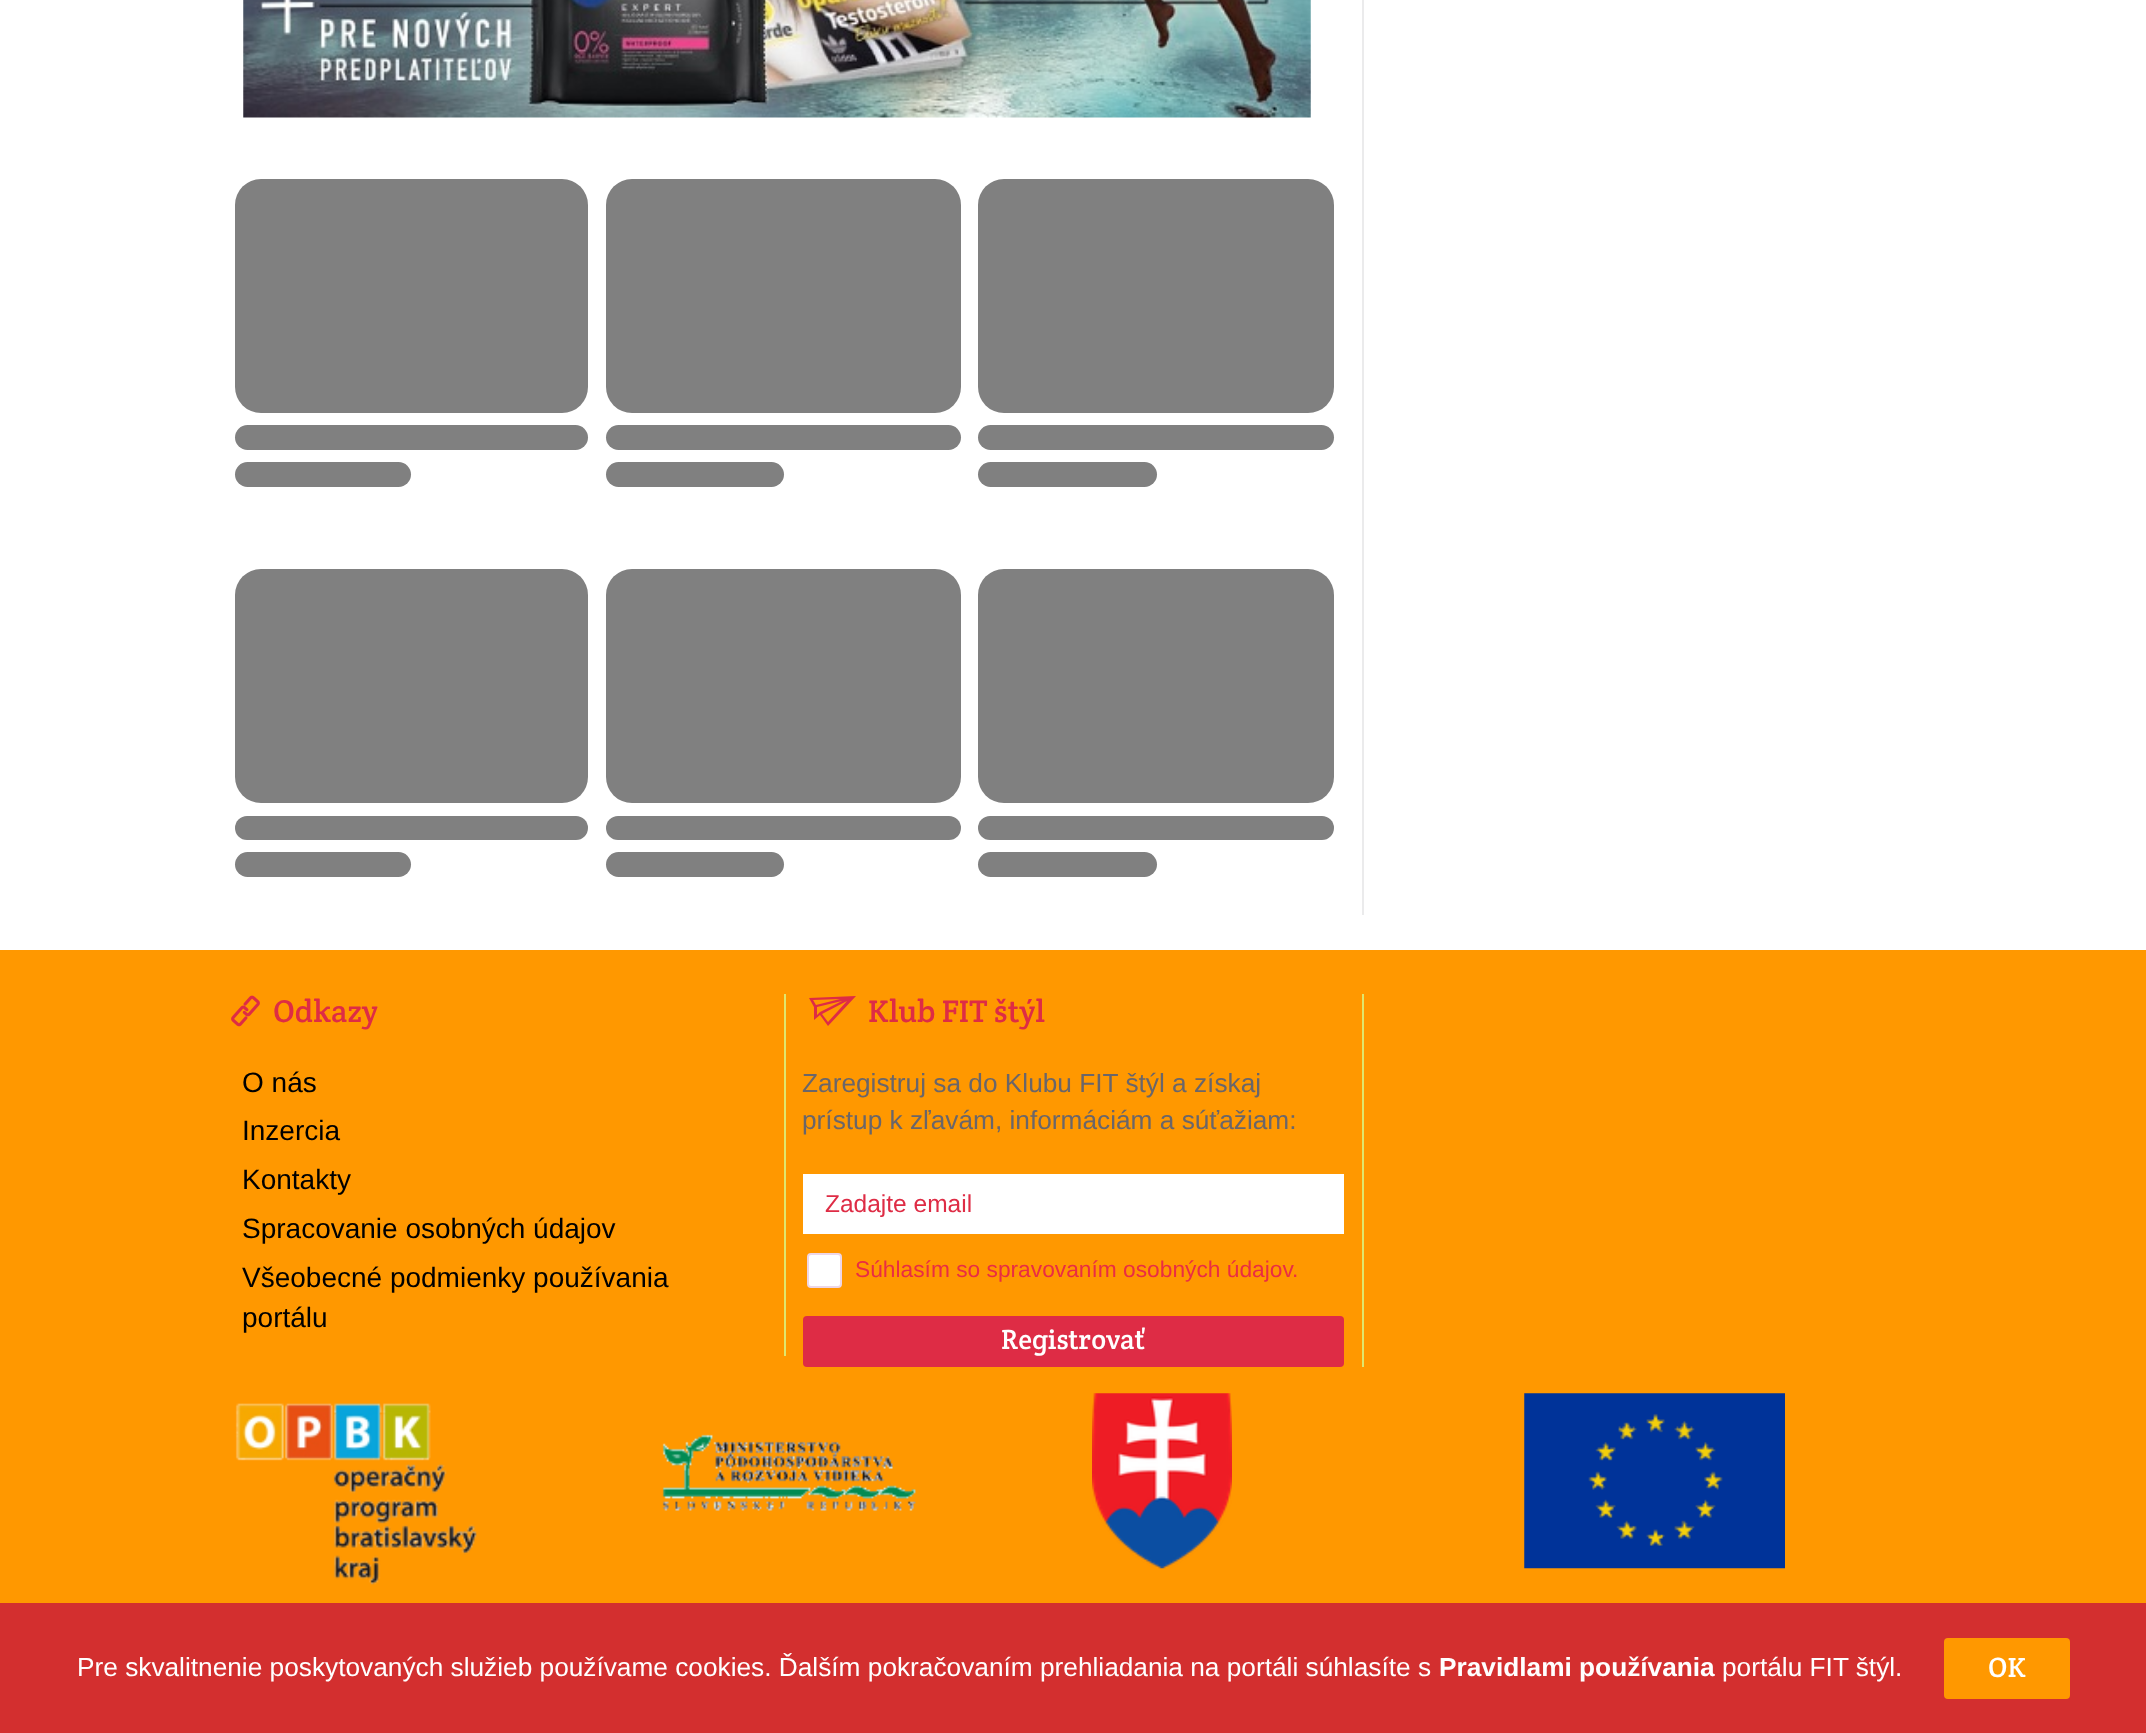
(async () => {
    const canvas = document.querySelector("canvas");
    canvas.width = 2146;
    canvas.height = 1733;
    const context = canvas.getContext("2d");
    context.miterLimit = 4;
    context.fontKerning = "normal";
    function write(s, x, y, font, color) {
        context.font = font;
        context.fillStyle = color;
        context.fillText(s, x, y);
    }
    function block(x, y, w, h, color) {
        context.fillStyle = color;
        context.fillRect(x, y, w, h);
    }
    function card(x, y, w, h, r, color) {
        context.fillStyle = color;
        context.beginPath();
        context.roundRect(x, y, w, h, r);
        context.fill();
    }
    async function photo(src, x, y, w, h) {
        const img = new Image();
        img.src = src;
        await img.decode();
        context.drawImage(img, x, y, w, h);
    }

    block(0, 0, 2146, 1733, "rgb(255, 255, 255)");
    block(1362, 0, 2, 915, "rgb(235, 235, 236)");
    await photo("media/1.png", 243, 0, 1068, 118);
    card(235, 179, 353, 234, 26, "rgb(128, 128, 128)");
    card(235, 425, 353, 25, 12.5, "rgb(128, 128, 128)");
    card(235, 462, 176, 25, 12.5, "rgb(128, 128, 128)");
    card(606, 179, 355, 234, 26, "rgb(128, 128, 128)");
    card(606, 425, 355, 25, 12.5, "rgb(128, 128, 128)");
    card(606, 462, 178, 25, 12.5, "rgb(128, 128, 128)");
    card(978, 179, 356, 234, 26, "rgb(128, 128, 128)");
    card(978, 425, 356, 25, 12.5, "rgb(128, 128, 128)");
    card(978, 462, 179, 25, 12.5, "rgb(128, 128, 128)");
    card(235, 569, 353, 234, 26, "rgb(128, 128, 128)");
    card(235, 816, 353, 24, 12, "rgb(128, 128, 128)");
    card(235, 852, 176, 25, 12.5, "rgb(128, 128, 128)");
    card(606, 569, 355, 234, 26, "rgb(128, 128, 128)");
    card(606, 816, 355, 24, 12, "rgb(128, 128, 128)");
    card(606, 852, 178, 25, 12.5, "rgb(128, 128, 128)");
    card(978, 569, 356, 234, 26, "rgb(128, 128, 128)");
    card(978, 816, 356, 24, 12, "rgb(128, 128, 128)");
    card(978, 852, 179, 25, 12.5, "rgb(128, 128, 128)");
    block(0, 950, 2146, 653, "rgb(255, 152, 0)");
    block(784, 994, 2, 362, "rgb(223, 230, 109)");
    await photo("media/2.png", 231, 995, 29, 32);
    write("Odkazy", 273, 1022, "31.5px Crete Round", "rgb(222, 44, 69)");
    write("O nás", 242, 1092, "28px Liberation Sans", "rgb(0, 0, 0)");
    write("Inzercia", 242, 1140, "28px Liberation Sans", "rgb(0, 0, 0)");
    write("Kontakty", 242, 1189, "28px Liberation Sans", "rgb(0, 0, 0)");
    write("Spracovanie osobných údajov", 242, 1238, "28px Liberation Sans", "rgb(0, 0, 0)");
    write("Všeobecné podmienky používania", 242, 1287, "28px Liberation Sans", "rgb(0, 0, 0)");
    write("portálu", 242, 1327, "28px Liberation Sans", "rgb(0, 0, 0)");
    block(1362, 994, 2, 373, "rgb(223, 230, 109)");
    context.fillStyle = "rgb(222, 44, 69)";
    context.beginPath();
    context.moveTo(809, 998);
    context.lineTo(814, 1007);
    context.lineTo(814, 1020);
    context.lineTo(820, 1015);
    context.lineTo(828, 1026);
    context.lineTo(856, 996);
    context.closePath();
    context.moveTo(813, 1000);
    context.lineTo(840, 999);
    context.lineTo(816, 1005);
    context.closePath();
    context.moveTo(817, 1015);
    context.lineTo(817, 1007);
    context.lineTo(842, 1001);
    context.lineTo(820, 1012);
    context.closePath();
    context.moveTo(822, 1014);
    context.lineTo(847, 1001);
    context.lineTo(828, 1022);
    context.closePath();
    context.fill();
    write("Klub FIT štýl", 868, 1022, "31.5px Crete Round", "rgb(222, 44, 69)");
    write("Zaregistruj sa do Klubu FIT štýl a získaj", 802, 1092, "26.25px Liberation Sans", "rgb(106, 102, 106)");
    write("prístup k zľavám, informáciám a súťažiam:", 802, 1129, "26.25px Liberation Sans", "rgb(106, 102, 106)");
    context.fillStyle = "rgb(255, 255, 255)";
    context.beginPath();
    context.rect(804, 1175, 539, 58);
    context.fill();
    context.strokeStyle = "rgb(255, 255, 255)";
    context.lineWidth = 2;
    context.stroke();
    write("Zadajte email", 825, 1212, "24.5px Liberation Sans", "rgb(222, 44, 69)");
    context.fillStyle = "rgb(255, 255, 255)";
    context.beginPath();
    context.roundRect(808, 1254, 33, 33, 3);
    context.fill();
    context.strokeStyle = "rgb(237, 214, 231)";
    context.stroke();
    write("Súhlasím so spravovaním osobných údajov.", 855, 1277, "22.75px Liberation Sans", "rgb(234, 45, 67)");
    card(803, 1316, 541, 51, 4, "rgb(222, 44, 69)");
    write("Registrovať", 1001, 1349, "28px Crete Round", "rgb(255, 255, 255)");
    await photo("media/3.png", 235, 1403, 242, 182);
    await photo("media/4.png", 662, 1434, 254, 77);
    await photo("media/5.png", 1092, 1393, 140, 176);
    await photo("media/6.png", 1524, 1393, 261, 176);
    block(0, 1603, 2146, 130, "rgb(211, 47, 47)");
    write("Pre skvalitnenie poskytovaných služieb používame cookies. Ďalším pokračovaním prehliadania na portáli súhlasíte s", 77, 1676, "26.25px Liberation Sans", "rgb(255, 255, 255)");
    write("Pravidlami používania", 1439, 1676, "bold 26.25px Liberation Sans", "rgb(255, 255, 255)");
    write("portálu FIT štýl.", 1722, 1676, "26.25px Liberation Sans", "rgb(255, 255, 255)");
    card(1944, 1638, 126, 61, 4, "rgb(255, 152, 0)");
    write("OK", 1988, 1677, "28px Crete Round", "rgb(255, 255, 255)");
})();
